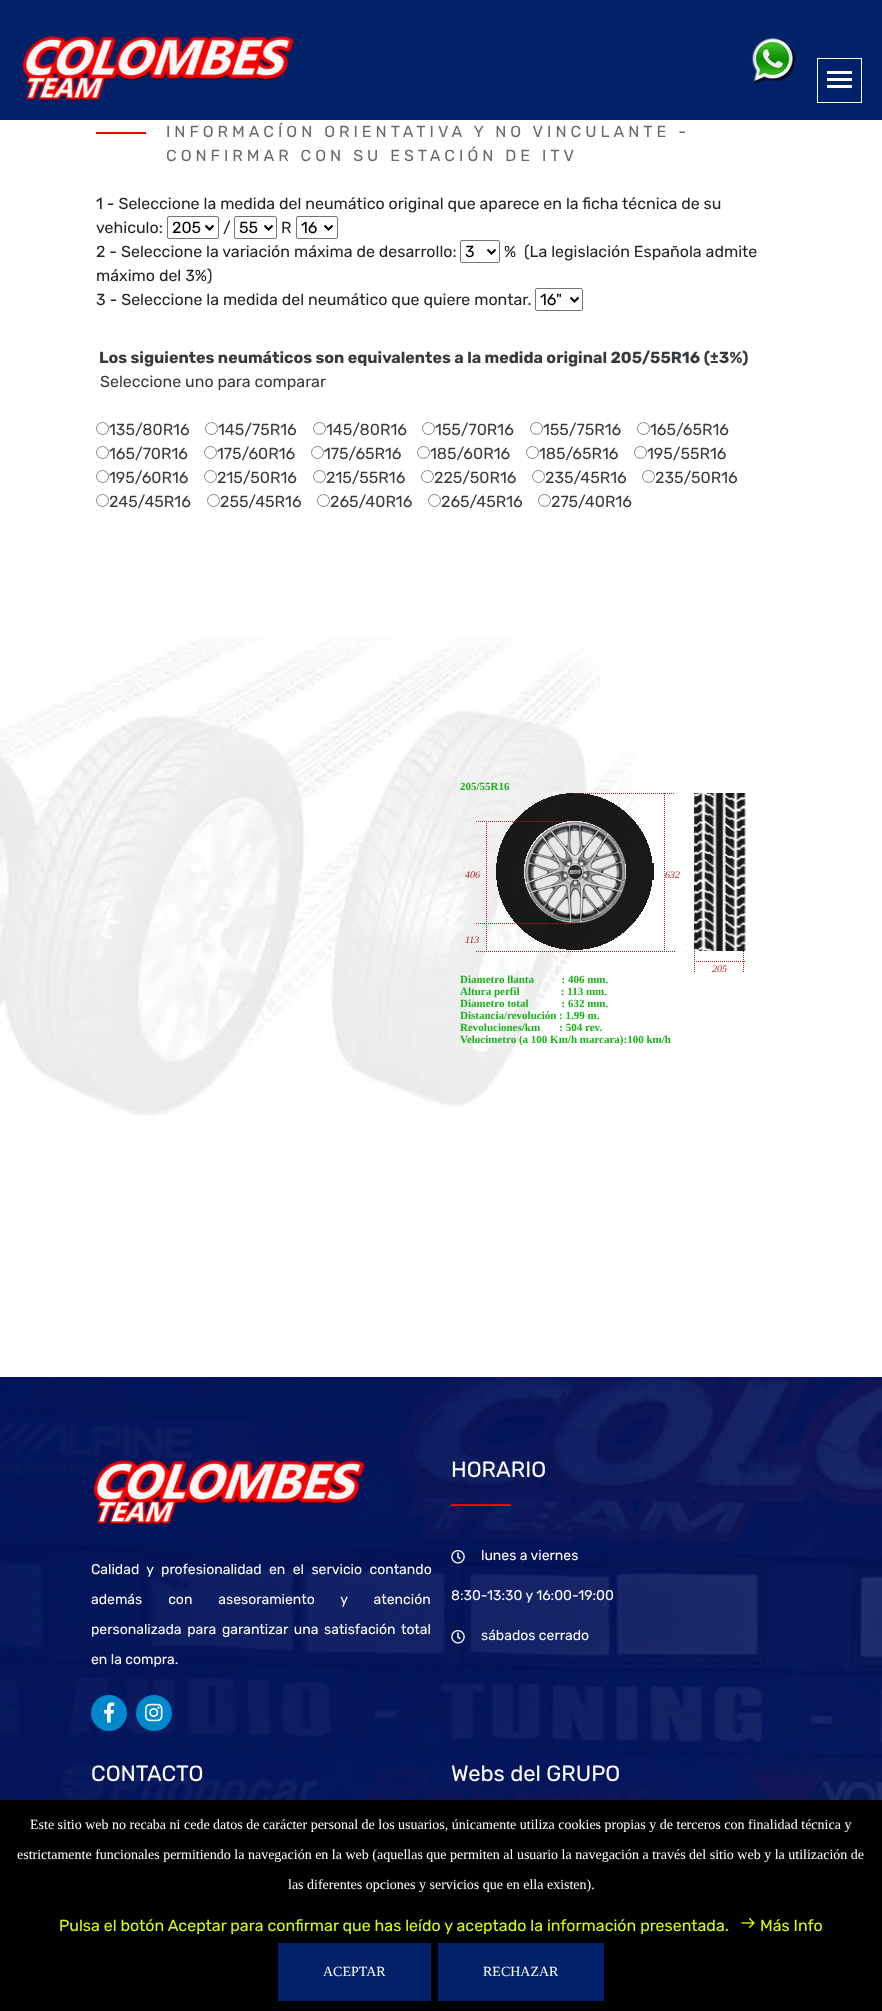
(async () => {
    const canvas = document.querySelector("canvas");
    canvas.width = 882;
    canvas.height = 2011;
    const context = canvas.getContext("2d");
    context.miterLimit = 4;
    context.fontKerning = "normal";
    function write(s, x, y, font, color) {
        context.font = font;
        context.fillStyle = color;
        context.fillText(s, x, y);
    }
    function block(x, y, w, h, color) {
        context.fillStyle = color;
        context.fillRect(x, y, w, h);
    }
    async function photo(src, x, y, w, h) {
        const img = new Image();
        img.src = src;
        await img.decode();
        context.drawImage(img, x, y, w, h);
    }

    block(0, 0, 882, 2011, "rgb(255, 255, 255)");
    block(0, 0, 882, 120, "rgb(1, 34, 105)");
    await photo("media/1.png", 22, 36, 272, 65);
    await photo("media/2.png", 751, 37, 45, 48);
    context.strokeStyle = "rgb(255, 255, 255)";
    context.strokeRect(817.5, 58.5, 44, 44);
    block(827, 71, 25, 3, "rgb(255, 255, 255)");
    block(827, 78, 25, 3, "rgb(255, 255, 255)");
    block(827, 85, 25, 3, "rgb(255, 255, 255)");
    await photo("media/3.png", 0, 635, 640, 481);
    block(96, 132, 50, 2, "rgb(244, 0, 0)");
    context.letterSpacing = "4px";
    write("INFORMACÍON ORIENTATIVA Y NO VINCULANTE -", 166, 137, "16px Rubik", "rgb(106, 106, 106)");
    write("CONFIRMAR CON SU ESTACIÓN DE ITV", 166, 161, "16px Rubik", "rgb(106, 106, 106)");
    context.letterSpacing = "0px";
    write("1 - Seleccione la medida del neumático original que aparece en la ficha técnica de su", 96, 209, "16px Rubik", "rgb(33, 37, 41)");
    write("vehiculo:", 96, 233, "16px Rubik", "rgb(33, 37, 41)");
    context.beginPath();
    context.roundRect(167.5, 216.5, 51, 22, 1.5);
    context.strokeStyle = "rgb(118, 118, 118)";
    context.stroke();
    context.beginPath();
    context.moveTo(205.5, 225.5);
    context.lineTo(209.5, 229.5);
    context.lineTo(213.5, 225.5);
    context.strokeStyle = "rgb(0, 0, 0)";
    context.lineWidth = 2;
    context.stroke();
    write("205", 172, 233, "16px Rubik", "rgb(0, 0, 0)");
    write("/", 223, 233, "16px Rubik", "rgb(33, 37, 41)");
    context.beginPath();
    context.roundRect(234.5, 216.5, 42, 22, 1.5);
    context.strokeStyle = "rgb(118, 118, 118)";
    context.lineWidth = 1;
    context.stroke();
    context.beginPath();
    context.moveTo(264.5, 225.5);
    context.lineTo(268.5, 229.5);
    context.lineTo(272.5, 225.5);
    context.strokeStyle = "rgb(0, 0, 0)";
    context.lineWidth = 2;
    context.stroke();
    write("55", 239, 233, "16px Rubik", "rgb(0, 0, 0)");
    write("R", 281, 233, "16px Rubik", "rgb(33, 37, 41)");
    context.beginPath();
    context.roundRect(296.5, 216.5, 41, 22, 1.5);
    context.strokeStyle = "rgb(118, 118, 118)";
    context.lineWidth = 1;
    context.stroke();
    context.beginPath();
    context.moveTo(324.5, 225.5);
    context.lineTo(328.5, 229.5);
    context.lineTo(332.5, 225.5);
    context.strokeStyle = "rgb(0, 0, 0)";
    context.lineWidth = 2;
    context.stroke();
    write("16", 301, 233, "16px Rubik", "rgb(0, 0, 0)");
    write("2 - Seleccione la variación máxima de desarrollo:", 96, 257, "16px Rubik", "rgb(33, 37, 41)");
    context.beginPath();
    context.roundRect(460.5, 240.5, 39, 22, 1.5);
    context.strokeStyle = "rgb(118, 118, 118)";
    context.lineWidth = 1;
    context.stroke();
    context.beginPath();
    context.moveTo(487.5, 249.5);
    context.lineTo(491.5, 253.5);
    context.lineTo(495.5, 249.5);
    context.strokeStyle = "rgb(0, 0, 0)";
    context.lineWidth = 2;
    context.stroke();
    write("3", 465, 257, "16px Rubik", "rgb(0, 0, 0)");
    write("%  (La legislación Española admite", 504, 257, "16px Rubik", "rgb(33, 37, 41)");
    write("máximo del 3%)", 96, 281, "16px Rubik", "rgb(33, 37, 41)");
    write("3 - Seleccione la medida del neumático que quiere montar.", 96, 305, "16px Rubik", "rgb(33, 37, 41)");
    context.beginPath();
    context.roundRect(535.5, 288.5, 47, 22, 1.5);
    context.strokeStyle = "rgb(118, 118, 118)";
    context.lineWidth = 1;
    context.stroke();
    context.beginPath();
    context.moveTo(570.5, 297.5);
    context.lineTo(574.5, 301.5);
    context.lineTo(578.5, 297.5);
    context.strokeStyle = "rgb(0, 0, 0)";
    context.lineWidth = 2;
    context.stroke();
    write("16\"", 540, 305, "16px Rubik", "rgb(0, 0, 0)");
    write("Los siguientes neumáticos son equivalentes a la medida original 205/55R16 (±3%)", 99, 363, "bold 16px Rubik", "rgb(55, 59, 62)");
    write("Seleccione uno para comparar", 100, 387, "16px Rubik", "rgb(55, 59, 62)");
    context.beginPath();
    context.arc(102.5, 428.5, 6, 0, Math.PI * 2);
    context.strokeStyle = "rgb(132, 132, 132)";
    context.lineWidth = 1;
    context.stroke();
    write("135/80R16", 109, 435, "16px Rubik", "rgb(55, 59, 62)");
    context.beginPath();
    context.arc(211.5, 428.5, 6, 0, Math.PI * 2);
    context.stroke();
    write("145/75R16", 218, 435, "16px Rubik", "rgb(55, 59, 62)");
    context.beginPath();
    context.arc(319.5, 428.5, 6, 0, Math.PI * 2);
    context.stroke();
    write("145/80R16", 326, 435, "16px Rubik", "rgb(55, 59, 62)");
    context.beginPath();
    context.arc(428.5, 428.5, 6, 0, Math.PI * 2);
    context.stroke();
    write("155/70R16", 435, 435, "16px Rubik", "rgb(55, 59, 62)");
    context.beginPath();
    context.arc(536.5, 428.5, 6, 0, Math.PI * 2);
    context.stroke();
    write("155/75R16", 543, 435, "16px Rubik", "rgb(55, 59, 62)");
    context.beginPath();
    context.arc(643.5, 428.5, 6, 0, Math.PI * 2);
    context.stroke();
    write("165/65R16", 650, 435, "16px Rubik", "rgb(55, 59, 62)");
    context.beginPath();
    context.arc(102.5, 452.5, 6, 0, Math.PI * 2);
    context.stroke();
    write("165/70R16", 109, 459, "16px Rubik", "rgb(55, 59, 62)");
    context.beginPath();
    context.arc(210.5, 452.5, 6, 0, Math.PI * 2);
    context.stroke();
    write("175/60R16", 217, 459, "16px Rubik", "rgb(55, 59, 62)");
    context.beginPath();
    context.arc(317.5, 452.5, 6, 0, Math.PI * 2);
    context.stroke();
    write("175/65R16", 324, 459, "16px Rubik", "rgb(55, 59, 62)");
    context.beginPath();
    context.arc(423.5, 452.5, 6, 0, Math.PI * 2);
    context.stroke();
    write("185/60R16", 430, 459, "16px Rubik", "rgb(55, 59, 62)");
    context.beginPath();
    context.arc(532.5, 452.5, 6, 0, Math.PI * 2);
    context.stroke();
    write("185/65R16", 539, 459, "16px Rubik", "rgb(55, 59, 62)");
    context.beginPath();
    context.arc(640.5, 452.5, 6, 0, Math.PI * 2);
    context.stroke();
    write("195/55R16", 647, 459, "16px Rubik", "rgb(55, 59, 62)");
    context.beginPath();
    context.arc(102.5, 476.5, 6, 0, Math.PI * 2);
    context.stroke();
    write("195/60R16", 109, 483, "16px Rubik", "rgb(55, 59, 62)");
    context.beginPath();
    context.arc(210.5, 476.5, 6, 0, Math.PI * 2);
    context.stroke();
    write("215/50R16", 217, 483, "16px Rubik", "rgb(55, 59, 62)");
    context.beginPath();
    context.arc(319.5, 476.5, 6, 0, Math.PI * 2);
    context.stroke();
    write("215/55R16", 326, 483, "16px Rubik", "rgb(55, 59, 62)");
    context.beginPath();
    context.arc(427.5, 476.5, 6, 0, Math.PI * 2);
    context.stroke();
    write("225/50R16", 434, 483, "16px Rubik", "rgb(55, 59, 62)");
    context.beginPath();
    context.arc(538.5, 476.5, 6, 0, Math.PI * 2);
    context.stroke();
    write("235/45R16", 545, 483, "16px Rubik", "rgb(55, 59, 62)");
    context.beginPath();
    context.arc(648.5, 476.5, 6, 0, Math.PI * 2);
    context.stroke();
    write("235/50R16", 655, 483, "16px Rubik", "rgb(55, 59, 62)");
    context.beginPath();
    context.arc(102.5, 500.5, 6, 0, Math.PI * 2);
    context.stroke();
    write("245/45R16", 109, 507, "16px Rubik", "rgb(55, 59, 62)");
    context.beginPath();
    context.arc(213.5, 500.5, 6, 0, Math.PI * 2);
    context.stroke();
    write("255/45R16", 220, 507, "16px Rubik", "rgb(55, 59, 62)");
    context.beginPath();
    context.arc(323.5, 500.5, 6, 0, Math.PI * 2);
    context.stroke();
    write("265/40R16", 330, 507, "16px Rubik", "rgb(55, 59, 62)");
    context.beginPath();
    context.arc(434.5, 500.5, 6, 0, Math.PI * 2);
    context.stroke();
    write("265/45R16", 441, 507, "16px Rubik", "rgb(55, 59, 62)");
    context.beginPath();
    context.arc(544.5, 500.5, 6, 0, Math.PI * 2);
    context.stroke();
    write("275/40R16", 551, 507, "16px Rubik", "rgb(55, 59, 62)");
    write("205/55R16", 460, 790, "bold 11px Liberation Serif", "rgb(24, 177, 24)");
    block(566, 793, 17, 1, "rgb(24, 24, 24)");
    block(575, 793, 1, 1, "rgb(177, 24, 24)");
    block(577, 793, 1, 1, "rgb(177, 24, 24)");
    block(579, 793, 1, 1, "rgb(177, 24, 24)");
    block(581, 793, 1, 1, "rgb(177, 24, 24)");
    block(583, 793, 1, 1, "rgb(177, 24, 24)");
    block(585, 793, 1, 1, "rgb(177, 24, 24)");
    block(587, 793, 1, 1, "rgb(178, 25, 25)");
    block(589, 793, 1, 1, "rgb(178, 25, 25)");
    block(591, 793, 1, 1, "rgb(178, 25, 25)");
    block(593, 793, 1, 1, "rgb(178, 25, 25)");
    block(595, 793, 1, 1, "rgb(178, 25, 25)");
    block(597, 793, 1, 1, "rgb(178, 25, 25)");
    block(599, 793, 1, 1, "rgb(178, 25, 25)");
    block(601, 793, 1, 1, "rgb(178, 25, 25)");
    block(603, 793, 1, 1, "rgb(178, 25, 25)");
    block(605, 793, 1, 1, "rgb(178, 25, 25)");
    block(607, 793, 1, 1, "rgb(178, 25, 25)");
    block(609, 793, 1, 1, "rgb(178, 25, 25)");
    block(611, 793, 1, 1, "rgb(178, 25, 25)");
    block(613, 793, 1, 1, "rgb(178, 25, 25)");
    block(615, 793, 1, 1, "rgb(178, 25, 25)");
    block(617, 793, 1, 1, "rgb(178, 25, 25)");
    block(619, 793, 1, 1, "rgb(178, 25, 25)");
    block(621, 793, 1, 1, "rgb(178, 25, 25)");
    block(623, 793, 1, 1, "rgb(178, 25, 25)");
    block(625, 793, 1, 1, "rgb(178, 25, 25)");
    block(627, 793, 1, 1, "rgb(178, 25, 25)");
    block(629, 793, 1, 1, "rgb(178, 25, 25)");
    block(631, 793, 1, 1, "rgb(178, 25, 25)");
    block(633, 793, 1, 1, "rgb(178, 25, 25)");
    block(635, 793, 1, 1, "rgb(178, 25, 25)");
    block(637, 793, 1, 1, "rgb(178, 25, 25)");
    block(639, 793, 1, 1, "rgb(178, 25, 25)");
    block(641, 793, 1, 1, "rgb(179, 26, 26)");
    block(643, 793, 1, 1, "rgb(179, 26, 26)");
    block(645, 793, 1, 1, "rgb(179, 26, 26)");
    block(647, 793, 1, 1, "rgb(179, 26, 26)");
    block(649, 793, 1, 1, "rgb(179, 26, 26)");
    block(651, 793, 1, 1, "rgb(179, 26, 26)");
    block(653, 793, 1, 1, "rgb(179, 26, 26)");
    block(655, 793, 1, 1, "rgb(179, 26, 26)");
    block(657, 793, 1, 1, "rgb(179, 26, 26)");
    block(659, 793, 1, 1, "rgb(179, 26, 26)");
    block(661, 793, 1, 1, "rgb(179, 26, 26)");
    block(663, 793, 1, 1, "rgb(179, 26, 26)");
    block(664, 793, 1, 1, "rgb(179, 26, 26)");
    block(665, 793, 1, 1, "rgb(179, 26, 26)");
    block(667, 793, 1, 1, "rgb(179, 26, 26)");
    block(669, 793, 1, 1, "rgb(179, 26, 26)");
    block(671, 793, 1, 1, "rgb(179, 26, 26)");
    block(673, 793, 1, 1, "rgb(179, 26, 26)");
    await photo("media/4.png", 694, 793, 52, 158);
    block(559, 794, 31, 1, "rgba(0, 0, 0, 0.9)");
    block(555, 795, 39, 1, "rgba(0, 0, 0, 0.9)");
    block(664, 795, 1, 1, "rgb(179, 26, 26)");
    block(551, 796, 47, 1, "rgba(0, 0, 0, 0.9)");
    block(548, 797, 53, 1, "rgba(0, 0, 0, 0.9)");
    block(664, 797, 1, 1, "rgb(179, 26, 26)");
    block(546, 798, 57, 1, "rgba(0, 0, 0, 0.9)");
    block(543, 799, 63, 1, "rgba(0, 0, 0, 0.9)");
    block(664, 799, 1, 1, "rgb(179, 26, 26)");
    block(541, 800, 67, 1, "rgba(0, 0, 0, 0.9)");
    block(539, 801, 71, 1, "rgba(0, 0, 0, 0.9)");
    block(664, 801, 1, 1, "rgb(179, 26, 26)");
    block(537, 802, 75, 1, "rgba(0, 0, 0, 0.9)");
    block(535, 803, 79, 1, "rgba(0, 0, 0, 0.9)");
    block(664, 803, 1, 1, "rgb(179, 26, 26)");
    block(534, 804, 81, 1, "rgba(0, 0, 0, 0.9)");
    block(532, 805, 85, 1, "rgba(0, 0, 0, 0.9)");
    block(664, 805, 1, 1, "rgb(179, 26, 26)");
    block(531, 806, 87, 1, "rgba(0, 0, 0, 0.9)");
    block(529, 807, 91, 1, "rgba(0, 0, 0, 0.9)");
    block(664, 807, 1, 1, "rgb(179, 26, 26)");
    block(528, 808, 93, 1, "rgba(0, 0, 0, 0.9)");
    block(527, 809, 95, 1, "rgba(0, 0, 0, 0.9)");
    block(664, 809, 1, 1, "rgb(179, 26, 26)");
    block(525, 810, 99, 1, "rgba(0, 0, 0, 0.9)");
    block(524, 811, 101, 1, "rgba(0, 0, 0, 0.9)");
    block(664, 811, 1, 1, "rgb(179, 26, 26)");
    block(523, 812, 103, 1, "rgba(0, 0, 0, 0.9)");
    block(522, 813, 105, 1, "rgba(0, 0, 0, 0.9)");
    block(664, 813, 1, 1, "rgb(179, 26, 26)");
    block(521, 814, 107, 1, "rgba(0, 0, 0, 0.9)");
    block(520, 815, 109, 1, "rgba(0, 0, 0, 0.9)");
    block(664, 815, 1, 1, "rgb(179, 26, 26)");
    block(519, 816, 111, 1, "rgba(0, 0, 0, 0.9)");
    block(518, 817, 113, 1, "rgba(0, 0, 0, 0.9)");
    block(664, 817, 1, 1, "rgb(179, 26, 26)");
    block(517, 818, 115, 1, "rgba(0, 0, 0, 0.9)");
    block(516, 819, 117, 1, "rgba(0, 0, 0, 0.9)");
    block(664, 819, 1, 1, "rgb(179, 26, 26)");
    block(515, 820, 119, 1, "rgba(0, 0, 0, 0.9)");
    block(476, 821, 1, 1, "rgb(177, 24, 24)");
    block(478, 821, 1, 1, "rgb(177, 24, 24)");
    block(480, 821, 1, 1, "rgb(177, 24, 24)");
    block(482, 821, 1, 1, "rgb(177, 24, 24)");
    block(484, 821, 1, 1, "rgb(177, 24, 24)");
    block(486, 821, 1, 1, "rgb(177, 24, 24)");
    block(488, 821, 1, 1, "rgb(177, 24, 24)");
    block(490, 821, 1, 1, "rgb(177, 24, 24)");
    block(492, 821, 1, 1, "rgb(177, 24, 24)");
    block(494, 821, 1, 1, "rgb(177, 24, 24)");
    block(496, 821, 1, 1, "rgb(177, 24, 24)");
    block(498, 821, 1, 1, "rgb(177, 24, 24)");
    block(500, 821, 1, 1, "rgb(177, 24, 24)");
    block(502, 821, 1, 1, "rgb(177, 24, 24)");
    block(504, 821, 1, 1, "rgb(177, 24, 24)");
    block(506, 821, 1, 1, "rgb(177, 24, 24)");
    block(508, 821, 1, 1, "rgb(177, 24, 24)");
    block(510, 821, 1, 1, "rgb(177, 24, 24)");
    block(512, 821, 1, 1, "rgb(177, 24, 24)");
    block(514, 821, 121, 1, "rgba(0, 0, 0, 0.9)");
    block(514, 821, 1, 1, "rgb(177, 24, 24)");
    block(516, 821, 1, 1, "rgb(177, 24, 24)");
    block(518, 821, 1, 1, "rgb(177, 24, 24)");
    block(520, 821, 1, 1, "rgb(177, 24, 24)");
    block(522, 821, 1, 1, "rgb(177, 24, 24)");
    block(524, 821, 1, 1, "rgb(177, 24, 24)");
    block(526, 821, 1, 1, "rgb(177, 24, 24)");
    block(528, 821, 1, 1, "rgb(177, 24, 24)");
    block(530, 821, 1, 1, "rgb(177, 24, 24)");
    block(532, 821, 1, 1, "rgb(177, 24, 24)");
    block(534, 821, 1, 1, "rgb(178, 25, 25)");
    block(536, 821, 1, 1, "rgb(178, 25, 25)");
    block(538, 821, 1, 1, "rgb(178, 25, 25)");
    block(540, 821, 1, 1, "rgb(178, 25, 25)");
    block(542, 821, 1, 1, "rgb(178, 25, 25)");
    block(544, 821, 1, 1, "rgb(178, 25, 25)");
    block(546, 821, 1, 1, "rgb(178, 25, 25)");
    block(548, 821, 1, 1, "rgb(178, 25, 25)");
    block(550, 821, 1, 1, "rgb(178, 25, 25)");
    block(552, 821, 1, 1, "rgb(178, 25, 25)");
    block(554, 821, 1, 1, "rgb(178, 25, 25)");
    block(556, 821, 1, 1, "rgb(178, 25, 25)");
    block(558, 821, 1, 1, "rgb(178, 25, 25)");
    block(560, 821, 1, 1, "rgb(177, 25, 25)");
    block(562, 821, 1, 1, "rgb(178, 25, 25)");
    block(564, 821, 1, 1, "rgb(178, 25, 25)");
    block(566, 821, 1, 1, "rgb(177, 24, 24)");
    block(568, 821, 1, 1, "rgb(177, 24, 24)");
    block(570, 821, 1, 1, "rgb(177, 24, 24)");
    block(572, 821, 1, 1, "rgb(177, 24, 24)");
    block(574, 821, 1, 1, "rgb(177, 24, 24)");
    block(567, 821, 15, 1, "rgba(255, 255, 255, 0.9)");
    block(513, 822, 123, 2, "rgba(0, 0, 0, 0.9)");
    block(562, 822, 25, 1, "rgb(232, 232, 232)");
    block(559, 823, 31, 1, "rgb(232, 232, 232)");
    block(512, 824, 125, 1, "rgba(0, 0, 0, 0.9)");
    block(556, 824, 37, 1, "rgb(232, 232, 232)");
    block(511, 825, 127, 1, "rgba(0, 0, 0, 0.9)");
    block(554, 825, 41, 1, "rgb(232, 232, 232)");
    block(510, 826, 129, 2, "rgba(0, 0, 0, 0.9)");
    block(552, 826, 45, 1, "rgb(232, 232, 232)");
    block(550, 827, 49, 1, "rgb(232, 232, 232)");
    block(509, 828, 131, 1, "rgba(0, 0, 0, 0.9)");
    block(548, 828, 53, 1, "rgb(232, 232, 232)");
    block(508, 829, 133, 2, "rgba(0, 0, 0, 0.9)");
    block(547, 829, 55, 1, "rgb(232, 232, 232)");
    block(545, 830, 59, 1, "rgb(232, 232, 232)");
    block(507, 831, 135, 1, "rgba(0, 0, 0, 0.9)");
    block(544, 831, 61, 1, "rgb(232, 232, 232)");
    block(506, 832, 137, 2, "rgba(0, 0, 0, 0.9)");
    block(543, 832, 63, 1, "rgb(232, 232, 232)");
    block(541, 833, 67, 1, "rgb(232, 232, 232)");
    block(505, 834, 139, 2, "rgba(0, 0, 0, 0.9)");
    block(540, 834, 69, 1, "rgb(232, 232, 232)");
    block(539, 835, 71, 1, "rgb(232, 232, 232)");
    block(504, 836, 141, 2, "rgba(0, 0, 0, 0.9)");
    block(538, 836, 73, 1, "rgb(232, 232, 232)");
    block(537, 837, 75, 1, "rgb(232, 232, 232)");
    block(503, 838, 143, 2, "rgba(0, 0, 0, 0.9)");
    block(536, 838, 77, 2, "rgb(232, 232, 232)");
    block(502, 840, 145, 3, "rgba(0, 0, 0, 0.9)");
    block(535, 840, 79, 1, "rgb(232, 232, 232)");
    block(534, 841, 81, 1, "rgb(232, 232, 232)");
    block(501, 843, 147, 2, "rgba(0, 0, 0, 0.9)");
    block(533, 842, 83, 2, "rgb(232, 232, 232)");
    block(532, 844, 85, 1, "rgb(232, 232, 232)");
    block(500, 845, 149, 3, "rgba(0, 0, 0, 0.9)");
    block(531, 845, 87, 2, "rgb(232, 232, 232)");
    block(499, 848, 151, 4, "rgba(0, 0, 0, 0.9)");
    block(530, 847, 89, 2, "rgb(232, 232, 232)");
    block(529, 849, 91, 2, "rgb(232, 232, 232)");
    block(498, 852, 153, 4, "rgba(0, 0, 0, 0.9)");
    block(528, 851, 93, 2, "rgb(232, 232, 232)");
    block(527, 853, 95, 3, "rgb(232, 232, 232)");
    block(497, 856, 155, 7, "rgba(0, 0, 0, 0.9)");
    block(526, 856, 97, 3, "rgb(232, 232, 232)");
    block(496, 863, 158, 17, "rgba(0, 0, 0, 0.9)");
    block(525, 859, 99, 5, "rgb(232, 232, 232)");
    block(524, 864, 102, 15, "rgb(232, 232, 232)");
    block(497, 880, 155, 7, "rgba(0, 0, 0, 0.9)");
    block(525, 879, 99, 5, "rgb(232, 232, 232)");
    block(526, 884, 97, 3, "rgb(232, 232, 232)");
    block(498, 887, 153, 4, "rgba(0, 0, 0, 0.9)");
    block(527, 887, 95, 3, "rgb(232, 232, 232)");
    block(499, 891, 151, 4, "rgba(0, 0, 0, 0.9)");
    block(528, 890, 93, 2, "rgb(232, 232, 232)");
    block(529, 892, 91, 2, "rgb(232, 232, 232)");
    block(500, 895, 149, 3, "rgba(0, 0, 0, 0.9)");
    block(530, 894, 89, 2, "rgb(232, 232, 232)");
    block(531, 896, 87, 2, "rgb(232, 232, 232)");
    block(501, 898, 147, 2, "rgba(0, 0, 0, 0.9)");
    block(532, 898, 85, 1, "rgb(232, 232, 232)");
    block(502, 900, 145, 3, "rgba(0, 0, 0, 0.9)");
    block(533, 899, 83, 2, "rgb(232, 232, 232)");
    block(534, 901, 81, 1, "rgb(232, 232, 232)");
    block(535, 902, 79, 1, "rgb(232, 232, 232)");
    block(503, 903, 143, 2, "rgba(0, 0, 0, 0.9)");
    block(536, 903, 77, 2, "rgb(232, 232, 232)");
    block(504, 905, 141, 2, "rgba(0, 0, 0, 0.9)");
    block(537, 905, 75, 1, "rgb(232, 232, 232)");
    block(538, 906, 73, 1, "rgb(232, 232, 232)");
    block(505, 907, 139, 2, "rgba(0, 0, 0, 0.9)");
    block(539, 907, 71, 1, "rgb(232, 232, 232)");
    block(540, 908, 69, 1, "rgb(232, 232, 232)");
    block(506, 909, 137, 2, "rgba(0, 0, 0, 0.9)");
    block(541, 909, 67, 1, "rgb(232, 232, 232)");
    block(543, 910, 63, 1, "rgb(232, 232, 232)");
    block(507, 911, 135, 1, "rgba(0, 0, 0, 0.9)");
    block(544, 911, 61, 1, "rgb(232, 232, 232)");
    block(508, 912, 133, 2, "rgba(0, 0, 0, 0.9)");
    block(545, 912, 59, 1, "rgb(232, 232, 232)");
    block(547, 913, 55, 1, "rgb(232, 232, 232)");
    block(509, 914, 131, 1, "rgba(0, 0, 0, 0.9)");
    block(548, 914, 53, 1, "rgb(232, 232, 232)");
    block(510, 915, 129, 2, "rgba(0, 0, 0, 0.9)");
    block(511, 917, 127, 1, "rgba(0, 0, 0, 0.9)");
    block(512, 918, 125, 1, "rgba(0, 0, 0, 0.9)");
    block(513, 919, 123, 2, "rgba(0, 0, 0, 0.9)");
    block(514, 921, 121, 1, "rgba(0, 0, 0, 0.9)");
    block(515, 922, 119, 1, "rgba(0, 0, 0, 0.9)");
    await photo("media/5.png", 524, 821, 102, 102);
    block(664, 821, 1, 1, "rgb(179, 26, 26)");
    block(486, 823, 1, 1, "rgb(177, 24, 24)");
    block(664, 823, 1, 1, "rgb(179, 26, 26)");
    block(486, 825, 1, 1, "rgb(177, 24, 24)");
    block(664, 825, 1, 1, "rgb(179, 26, 26)");
    block(486, 827, 1, 1, "rgb(177, 24, 24)");
    block(664, 827, 1, 1, "rgb(179, 26, 26)");
    block(486, 829, 1, 1, "rgb(177, 24, 24)");
    block(664, 829, 1, 1, "rgb(179, 26, 26)");
    block(486, 831, 1, 1, "rgb(177, 24, 24)");
    block(664, 831, 1, 1, "rgb(179, 26, 26)");
    block(486, 833, 1, 1, "rgb(177, 24, 24)");
    block(664, 833, 1, 1, "rgb(179, 26, 26)");
    block(486, 835, 1, 1, "rgb(177, 24, 24)");
    block(664, 835, 1, 1, "rgb(179, 26, 26)");
    block(486, 837, 1, 1, "rgb(177, 24, 24)");
    block(664, 837, 1, 1, "rgb(179, 26, 26)");
    block(486, 839, 1, 1, "rgb(177, 24, 24)");
    block(664, 839, 1, 1, "rgb(179, 26, 26)");
    block(486, 841, 1, 1, "rgb(177, 24, 24)");
    block(664, 841, 1, 1, "rgb(179, 26, 26)");
    block(486, 843, 1, 1, "rgb(177, 24, 24)");
    block(664, 843, 1, 1, "rgb(179, 26, 26)");
    block(486, 845, 1, 1, "rgb(177, 24, 24)");
    block(664, 845, 1, 1, "rgb(179, 26, 26)");
    block(486, 847, 1, 1, "rgb(177, 24, 24)");
    block(664, 847, 1, 1, "rgb(179, 26, 26)");
    block(486, 849, 1, 1, "rgb(177, 24, 24)");
    block(664, 849, 1, 1, "rgb(179, 26, 26)");
    block(486, 851, 1, 1, "rgb(177, 24, 24)");
    block(664, 851, 1, 1, "rgb(179, 26, 26)");
    block(486, 853, 1, 1, "rgb(177, 24, 24)");
    block(664, 853, 1, 1, "rgb(179, 26, 26)");
    block(486, 855, 1, 1, "rgb(177, 24, 24)");
    block(664, 855, 1, 1, "rgb(179, 26, 26)");
    block(486, 857, 1, 1, "rgb(177, 24, 24)");
    block(664, 857, 1, 1, "rgb(179, 26, 26)");
    block(486, 859, 1, 1, "rgb(177, 24, 24)");
    block(664, 859, 1, 1, "rgb(179, 26, 26)");
    block(486, 861, 1, 1, "rgb(177, 24, 24)");
    block(664, 861, 1, 1, "rgb(179, 26, 26)");
    block(486, 863, 1, 1, "rgb(177, 24, 24)");
    block(664, 863, 1, 1, "rgb(179, 26, 26)");
    block(486, 865, 1, 1, "rgb(177, 24, 24)");
    block(664, 865, 1, 1, "rgb(179, 26, 26)");
    block(486, 867, 1, 1, "rgb(177, 24, 24)");
    block(664, 867, 1, 1, "rgb(179, 26, 26)");
    block(486, 869, 1, 1, "rgb(177, 24, 24)");
    block(664, 869, 1, 1, "rgb(179, 26, 26)");
    write("406", 465, 878, "italic 10px Liberation Serif", "rgb(179, 26, 26)");
    block(486, 871, 1, 1, "rgb(177, 24, 24)");
    block(664, 871, 1, 1, "rgb(179, 26, 26)");
    write("632", 665, 878, "italic 10px Liberation Serif", "rgb(179, 26, 26)");
    block(486, 873, 1, 1, "rgb(177, 24, 24)");
    block(664, 873, 1, 1, "rgb(179, 26, 26)");
    block(486, 875, 1, 1, "rgb(177, 24, 24)");
    block(664, 875, 1, 1, "rgb(179, 26, 26)");
    block(486, 877, 1, 1, "rgb(177, 24, 24)");
    block(664, 877, 1, 1, "rgb(179, 26, 26)");
    block(486, 879, 1, 1, "rgb(177, 24, 24)");
    block(664, 879, 1, 1, "rgb(179, 26, 26)");
    block(486, 881, 1, 1, "rgb(177, 24, 24)");
    block(664, 881, 1, 1, "rgb(179, 26, 26)");
    block(486, 883, 1, 1, "rgb(177, 24, 24)");
    block(664, 883, 1, 1, "rgb(179, 26, 26)");
    block(486, 885, 1, 1, "rgb(177, 24, 24)");
    block(664, 885, 1, 1, "rgb(179, 26, 26)");
    block(486, 887, 1, 1, "rgb(177, 24, 24)");
    block(664, 887, 1, 1, "rgb(179, 26, 26)");
    block(486, 889, 1, 1, "rgb(177, 24, 24)");
    block(664, 889, 1, 1, "rgb(179, 26, 26)");
    block(486, 891, 1, 1, "rgb(177, 24, 24)");
    block(664, 891, 1, 1, "rgb(179, 26, 26)");
    block(486, 893, 1, 1, "rgb(177, 24, 24)");
    block(664, 893, 1, 1, "rgb(179, 26, 26)");
    block(486, 895, 1, 1, "rgb(177, 24, 24)");
    block(664, 895, 1, 1, "rgb(179, 26, 26)");
    block(486, 897, 1, 1, "rgb(177, 24, 24)");
    block(664, 897, 1, 1, "rgb(179, 26, 26)");
    block(486, 899, 1, 1, "rgb(177, 24, 24)");
    block(664, 899, 1, 1, "rgb(179, 26, 26)");
    block(486, 901, 1, 1, "rgb(177, 24, 24)");
    block(664, 901, 1, 1, "rgb(179, 26, 26)");
    block(486, 903, 1, 1, "rgb(177, 24, 24)");
    block(664, 903, 1, 1, "rgb(179, 26, 26)");
    block(486, 905, 1, 1, "rgb(177, 24, 24)");
    block(664, 905, 1, 1, "rgb(179, 26, 26)");
    block(486, 907, 1, 1, "rgb(177, 24, 24)");
    block(664, 907, 1, 1, "rgb(179, 26, 26)");
    block(486, 909, 1, 1, "rgb(177, 24, 24)");
    block(664, 909, 1, 1, "rgb(179, 26, 26)");
    block(486, 911, 1, 1, "rgb(177, 24, 24)");
    block(664, 911, 1, 1, "rgb(179, 26, 26)");
    block(486, 913, 1, 1, "rgb(177, 24, 24)");
    block(664, 913, 1, 1, "rgb(179, 26, 26)");
    block(486, 915, 1, 1, "rgb(177, 24, 24)");
    block(664, 915, 1, 1, "rgb(179, 26, 26)");
    block(486, 917, 1, 1, "rgb(177, 24, 24)");
    block(664, 917, 1, 1, "rgb(179, 26, 26)");
    block(486, 919, 1, 1, "rgb(177, 24, 24)");
    block(664, 919, 1, 1, "rgb(179, 26, 26)");
    block(486, 921, 1, 1, "rgb(177, 24, 24)");
    block(664, 921, 1, 1, "rgb(179, 26, 26)");
    block(476, 923, 1, 1, "rgb(177, 24, 24)");
    block(478, 923, 1, 1, "rgb(177, 24, 24)");
    block(480, 923, 1, 1, "rgb(177, 24, 24)");
    block(482, 923, 1, 1, "rgb(177, 24, 24)");
    block(484, 923, 1, 1, "rgb(177, 24, 24)");
    block(486, 923, 1, 1, "rgb(177, 24, 24)");
    block(488, 923, 1, 1, "rgb(177, 24, 24)");
    block(490, 923, 1, 1, "rgb(177, 24, 24)");
    block(492, 923, 1, 1, "rgb(178, 25, 25)");
    block(494, 923, 1, 1, "rgb(178, 25, 25)");
    block(496, 923, 1, 1, "rgb(178, 25, 25)");
    block(498, 923, 1, 1, "rgb(178, 25, 25)");
    block(500, 923, 1, 1, "rgb(178, 25, 25)");
    block(502, 923, 1, 1, "rgb(178, 25, 25)");
    block(504, 923, 1, 1, "rgb(178, 25, 25)");
    block(506, 923, 1, 1, "rgb(178, 25, 25)");
    block(508, 923, 1, 1, "rgb(178, 25, 25)");
    block(510, 923, 1, 1, "rgb(178, 25, 25)");
    block(512, 923, 1, 1, "rgb(178, 25, 25)");
    block(514, 923, 1, 1, "rgb(178, 26, 25)");
    block(516, 923, 117, 1, "rgba(0, 0, 0, 0.9)");
    block(516, 923, 1, 1, "rgb(178, 25, 25)");
    block(518, 923, 1, 1, "rgb(178, 25, 25)");
    block(520, 923, 1, 1, "rgb(177, 24, 24)");
    block(522, 923, 1, 1, "rgb(177, 24, 24)");
    block(524, 923, 1, 1, "rgb(177, 24, 24)");
    block(526, 923, 1, 1, "rgb(178, 25, 25)");
    block(528, 923, 1, 1, "rgb(178, 25, 25)");
    block(530, 923, 1, 1, "rgb(178, 25, 25)");
    block(532, 923, 1, 1, "rgb(178, 25, 25)");
    block(534, 923, 1, 1, "rgb(178, 25, 25)");
    block(536, 923, 1, 1, "rgb(178, 25, 25)");
    block(538, 923, 1, 1, "rgb(178, 25, 25)");
    block(540, 923, 1, 1, "rgb(178, 25, 25)");
    block(542, 923, 1, 1, "rgb(178, 25, 25)");
    block(544, 923, 1, 1, "rgb(178, 25, 25)");
    block(546, 923, 1, 1, "rgb(178, 25, 25)");
    block(548, 923, 1, 1, "rgb(177, 24, 24)");
    block(550, 923, 1, 1, "rgb(177, 24, 24)");
    block(552, 923, 1, 1, "rgb(177, 24, 24)");
    block(554, 923, 1, 1, "rgb(177, 24, 24)");
    block(556, 923, 1, 1, "rgb(177, 24, 24)");
    block(558, 923, 1, 1, "rgb(177, 24, 24)");
    block(560, 923, 1, 1, "rgb(177, 24, 24)");
    block(562, 923, 1, 1, "rgb(178, 25, 25)");
    block(564, 923, 1, 1, "rgb(178, 25, 25)");
    block(566, 923, 1, 1, "rgb(178, 25, 25)");
    block(568, 923, 1, 1, "rgb(178, 25, 25)");
    block(570, 923, 1, 1, "rgb(177, 24, 24)");
    block(572, 923, 1, 1, "rgb(178, 25, 25)");
    block(574, 923, 1, 1, "rgb(178, 25, 25)");
    block(664, 923, 1, 1, "rgb(179, 26, 26)");
    block(517, 924, 115, 1, "rgba(0, 0, 0, 0.9)");
    block(486, 925, 1, 1, "rgb(177, 24, 24)");
    block(518, 925, 113, 1, "rgba(0, 0, 0, 0.9)");
    block(664, 925, 1, 1, "rgb(179, 26, 26)");
    block(519, 926, 111, 1, "rgba(0, 0, 0, 0.9)");
    block(486, 927, 1, 1, "rgb(177, 24, 24)");
    block(520, 927, 109, 1, "rgba(0, 0, 0, 0.9)");
    block(664, 927, 1, 1, "rgb(179, 26, 26)");
    block(521, 928, 107, 1, "rgba(0, 0, 0, 0.9)");
    block(486, 929, 1, 1, "rgb(177, 24, 24)");
    block(522, 929, 105, 1, "rgba(0, 0, 0, 0.9)");
    block(664, 929, 1, 1, "rgb(179, 26, 26)");
    block(523, 930, 103, 1, "rgba(0, 0, 0, 0.9)");
    block(486, 931, 1, 1, "rgb(177, 24, 24)");
    block(524, 931, 101, 1, "rgba(0, 0, 0, 0.9)");
    block(664, 931, 1, 1, "rgb(179, 26, 26)");
    block(525, 932, 99, 1, "rgba(0, 0, 0, 0.9)");
    block(486, 933, 1, 1, "rgb(177, 24, 24)");
    block(527, 933, 95, 1, "rgba(0, 0, 0, 0.9)");
    block(664, 933, 1, 1, "rgb(179, 26, 26)");
    block(528, 934, 93, 1, "rgba(0, 0, 0, 0.9)");
    block(486, 935, 1, 1, "rgb(176, 23, 23)");
    block(529, 935, 91, 1, "rgba(0, 0, 0, 0.9)");
    block(664, 935, 1, 1, "rgb(179, 26, 26)");
    write("113", 465, 943, "italic 10px Liberation Serif", "rgb(179, 26, 26)");
    block(531, 936, 87, 1, "rgba(0, 0, 0, 0.9)");
    block(486, 937, 1, 1, "rgb(176, 24, 23)");
    block(532, 937, 85, 1, "rgba(0, 0, 0, 0.9)");
    block(664, 937, 1, 1, "rgb(179, 26, 26)");
    block(534, 938, 81, 1, "rgba(0, 0, 0, 0.9)");
    block(486, 939, 1, 1, "rgb(177, 24, 24)");
    block(535, 939, 79, 1, "rgba(0, 0, 0, 0.9)");
    block(664, 939, 1, 1, "rgb(179, 26, 26)");
    block(537, 940, 75, 1, "rgba(0, 0, 0, 0.9)");
    block(486, 941, 1, 1, "rgb(177, 24, 24)");
    block(539, 941, 71, 1, "rgba(0, 0, 0, 0.9)");
    block(664, 941, 1, 1, "rgb(179, 26, 26)");
    block(541, 942, 67, 1, "rgba(0, 0, 0, 0.9)");
    block(486, 943, 1, 1, "rgb(177, 24, 24)");
    block(543, 943, 63, 1, "rgba(0, 0, 0, 0.9)");
    block(664, 943, 1, 1, "rgb(179, 26, 26)");
    block(546, 944, 57, 1, "rgba(0, 0, 0, 0.9)");
    block(486, 945, 1, 1, "rgb(177, 25, 25)");
    block(548, 945, 53, 1, "rgba(0, 0, 0, 0.9)");
    block(664, 945, 1, 1, "rgb(179, 26, 26)");
    block(551, 946, 47, 1, "rgba(0, 0, 0, 0.9)");
    block(486, 947, 1, 1, "rgb(178, 25, 25)");
    block(555, 947, 39, 1, "rgba(0, 0, 0, 0.9)");
    block(664, 947, 1, 1, "rgb(179, 26, 26)");
    block(559, 948, 31, 1, "rgba(0, 0, 0, 0.9)");
    block(486, 949, 1, 1, "rgb(178, 25, 25)");
    block(566, 949, 17, 1, "rgba(0, 0, 0, 0.9)");
    block(664, 949, 1, 1, "rgb(179, 26, 26)");
    block(476, 951, 1, 1, "rgb(177, 24, 24)");
    block(478, 951, 1, 1, "rgb(177, 24, 24)");
    block(480, 951, 1, 1, "rgb(177, 24, 24)");
    block(482, 951, 1, 1, "rgb(177, 24, 24)");
    block(484, 951, 1, 1, "rgb(177, 24, 24)");
    block(486, 951, 1, 1, "rgb(178, 25, 25)");
    block(488, 951, 1, 1, "rgb(178, 25, 25)");
    block(490, 951, 1, 1, "rgb(178, 25, 25)");
    block(492, 951, 1, 1, "rgb(179, 26, 26)");
    block(494, 951, 1, 1, "rgb(179, 26, 26)");
    block(496, 951, 1, 1, "rgb(179, 26, 26)");
    block(498, 951, 1, 1, "rgb(179, 26, 26)");
    block(500, 951, 1, 1, "rgb(179, 26, 26)");
    block(502, 951, 1, 1, "rgb(179, 26, 26)");
    block(504, 951, 1, 1, "rgb(178, 25, 25)");
    block(506, 951, 1, 1, "rgb(178, 25, 25)");
    block(508, 951, 1, 1, "rgb(178, 25, 25)");
    block(510, 951, 1, 1, "rgb(178, 25, 25)");
    block(512, 951, 1, 1, "rgb(178, 25, 25)");
    block(514, 951, 1, 1, "rgb(178, 25, 25)");
    block(516, 951, 1, 1, "rgb(178, 25, 25)");
    block(518, 951, 1, 1, "rgb(178, 25, 25)");
    block(520, 951, 1, 1, "rgb(178, 25, 25)");
    block(522, 951, 1, 1, "rgb(178, 25, 25)");
    block(524, 951, 1, 1, "rgb(178, 25, 25)");
    block(526, 951, 1, 1, "rgb(178, 25, 25)");
    block(528, 951, 1, 1, "rgb(178, 25, 25)");
    block(530, 951, 1, 1, "rgb(178, 25, 25)");
    block(532, 951, 1, 1, "rgb(178, 25, 25)");
    block(534, 951, 1, 1, "rgb(178, 25, 25)");
    block(536, 951, 1, 1, "rgb(178, 25, 25)");
    block(538, 951, 1, 1, "rgb(178, 25, 25)");
    block(540, 951, 1, 1, "rgb(177, 24, 24)");
    block(542, 951, 1, 1, "rgb(177, 24, 24)");
    block(544, 951, 1, 1, "rgb(177, 24, 24)");
    block(546, 951, 1, 1, "rgb(177, 24, 24)");
    block(548, 951, 1, 1, "rgb(177, 24, 24)");
    block(550, 951, 1, 1, "rgb(177, 24, 24)");
    block(552, 951, 1, 1, "rgb(177, 24, 24)");
    block(554, 951, 1, 1, "rgb(177, 24, 24)");
    block(556, 951, 1, 1, "rgb(178, 25, 25)");
    block(558, 951, 1, 1, "rgb(177, 24, 24)");
    block(560, 951, 1, 1, "rgb(177, 24, 24)");
    block(562, 951, 1, 1, "rgb(178, 25, 25)");
    block(564, 951, 1, 1, "rgb(178, 25, 25)");
    block(566, 951, 1, 1, "rgb(177, 24, 24)");
    block(568, 951, 1, 1, "rgb(177, 24, 24)");
    block(570, 951, 1, 1, "rgb(177, 24, 24)");
    block(572, 951, 1, 1, "rgb(178, 25, 25)");
    block(574, 951, 1, 1, "rgb(178, 25, 25)");
    block(576, 951, 1, 1, "rgb(178, 25, 25)");
    block(578, 951, 1, 1, "rgb(178, 25, 25)");
    block(580, 951, 1, 1, "rgb(179, 26, 26)");
    block(582, 951, 1, 1, "rgb(179, 26, 26)");
    block(584, 951, 1, 1, "rgb(179, 26, 26)");
    block(586, 951, 1, 1, "rgb(179, 26, 26)");
    block(588, 951, 1, 1, "rgb(179, 26, 26)");
    block(590, 951, 1, 1, "rgb(179, 26, 26)");
    block(592, 951, 1, 1, "rgb(179, 26, 26)");
    block(594, 951, 1, 1, "rgb(179, 26, 26)");
    block(596, 951, 1, 1, "rgb(179, 26, 26)");
    block(598, 951, 1, 1, "rgb(179, 26, 26)");
    block(600, 951, 1, 1, "rgb(179, 26, 26)");
    block(602, 951, 1, 1, "rgb(179, 26, 26)");
    block(604, 951, 1, 1, "rgb(179, 26, 26)");
    block(606, 951, 1, 1, "rgb(179, 26, 26)");
    block(608, 951, 1, 1, "rgb(179, 26, 26)");
    block(610, 951, 1, 1, "rgb(179, 26, 26)");
    block(612, 951, 1, 1, "rgb(179, 26, 26)");
    block(614, 951, 1, 1, "rgb(179, 26, 26)");
    block(616, 951, 1, 1, "rgb(179, 26, 26)");
    block(618, 951, 1, 1, "rgb(179, 26, 26)");
    block(620, 951, 1, 1, "rgb(179, 26, 26)");
    block(622, 951, 1, 1, "rgb(179, 26, 26)");
    block(624, 951, 1, 1, "rgb(179, 26, 26)");
    block(626, 951, 1, 1, "rgb(179, 26, 26)");
    block(628, 951, 1, 1, "rgb(179, 26, 26)");
    block(630, 951, 1, 1, "rgb(179, 26, 26)");
    block(632, 951, 1, 1, "rgb(179, 26, 26)");
    block(634, 951, 1, 1, "rgb(179, 26, 26)");
    block(636, 951, 1, 1, "rgb(179, 26, 26)");
    block(638, 951, 1, 1, "rgb(179, 26, 26)");
    block(640, 951, 1, 1, "rgb(179, 26, 26)");
    block(642, 951, 1, 1, "rgb(179, 26, 26)");
    block(644, 951, 1, 1, "rgb(179, 26, 26)");
    block(646, 951, 1, 1, "rgb(179, 26, 26)");
    block(648, 951, 1, 1, "rgb(179, 26, 26)");
    block(650, 951, 1, 1, "rgb(179, 26, 26)");
    block(652, 951, 1, 1, "rgb(179, 26, 26)");
    block(654, 951, 1, 1, "rgb(179, 26, 26)");
    block(656, 951, 1, 1, "rgb(179, 26, 26)");
    block(658, 951, 1, 1, "rgb(179, 26, 26)");
    block(660, 951, 1, 1, "rgb(179, 26, 26)");
    block(662, 951, 1, 1, "rgb(179, 26, 26)");
    block(664, 951, 1, 1, "rgb(179, 26, 26)");
    block(666, 951, 1, 1, "rgb(179, 26, 26)");
    block(668, 951, 1, 1, "rgb(179, 26, 26)");
    block(670, 951, 1, 1, "rgb(179, 26, 26)");
    block(672, 951, 1, 1, "rgb(179, 26, 26)");
    block(674, 951, 1, 1, "rgb(179, 26, 26)");
    block(694, 951, 1, 1, "rgb(179, 26, 26)");
    block(743, 951, 1, 1, "rgb(179, 26, 26)");
    block(694, 953, 1, 1, "rgb(179, 26, 26)");
    block(743, 953, 1, 1, "rgb(179, 26, 26)");
    block(694, 955, 1, 1, "rgb(179, 26, 26)");
    block(743, 955, 1, 1, "rgb(179, 26, 26)");
    block(694, 957, 1, 1, "rgb(179, 26, 26)");
    block(743, 957, 1, 1, "rgb(179, 26, 26)");
    block(694, 959, 1, 1, "rgb(179, 26, 26)");
    block(743, 959, 1, 1, "rgb(179, 26, 26)");
    block(694, 961, 1, 1, "rgb(179, 26, 26)");
    block(696, 961, 1, 1, "rgb(179, 26, 26)");
    block(698, 961, 1, 1, "rgb(179, 26, 26)");
    block(700, 961, 1, 1, "rgb(179, 26, 26)");
    block(702, 961, 1, 1, "rgb(179, 26, 26)");
    block(704, 961, 1, 1, "rgb(179, 26, 26)");
    block(706, 961, 1, 1, "rgb(179, 26, 26)");
    block(708, 961, 1, 1, "rgb(179, 26, 26)");
    block(710, 961, 1, 1, "rgb(179, 26, 26)");
    block(712, 961, 1, 1, "rgb(179, 26, 26)");
    block(714, 961, 1, 1, "rgb(179, 26, 26)");
    block(716, 961, 1, 1, "rgb(179, 26, 26)");
    block(718, 961, 1, 1, "rgb(179, 26, 26)");
    block(720, 961, 1, 1, "rgb(179, 26, 26)");
    block(722, 961, 1, 1, "rgb(179, 26, 26)");
    block(724, 961, 1, 1, "rgb(179, 26, 26)");
    block(726, 961, 1, 1, "rgb(179, 26, 26)");
    block(728, 961, 1, 1, "rgb(179, 26, 26)");
    block(730, 961, 1, 1, "rgb(179, 26, 26)");
    block(732, 961, 1, 1, "rgb(179, 26, 26)");
    block(734, 961, 1, 1, "rgb(179, 26, 26)");
    block(736, 961, 1, 1, "rgb(179, 26, 26)");
    block(738, 961, 1, 1, "rgb(179, 26, 26)");
    block(740, 961, 1, 1, "rgb(179, 26, 26)");
    block(742, 961, 1, 1, "rgb(179, 26, 26)");
    block(743, 961, 2, 1, "rgb(179, 26, 26)");
    block(694, 963, 1, 1, "rgb(179, 26, 26)");
    block(743, 963, 1, 1, "rgb(179, 26, 26)");
    block(694, 965, 1, 1, "rgb(179, 26, 26)");
    write("205", 712, 972, "italic 10px Liberation Serif", "rgb(179, 26, 26)");
    block(743, 965, 1, 1, "rgb(179, 26, 26)");
    block(694, 967, 1, 1, "rgb(179, 26, 26)");
    block(743, 967, 1, 1, "rgb(179, 26, 26)");
    block(694, 969, 1, 1, "rgb(179, 26, 26)");
    block(743, 969, 1, 1, "rgb(179, 26, 26)");
    block(694, 971, 1, 1, "rgb(179, 26, 26)");
    block(743, 971, 1, 1, "rgb(179, 26, 26)");
    write("Diametro llanta          : 406 mm.", 460, 983, "bold 11px Liberation Serif", "rgb(24, 177, 24)");
    write("Altura perfil               : 113 mm.", 460, 995, "bold 11px Liberation Serif", "rgb(24, 177, 24)");
    write("Diametro total            : 632 mm.", 460, 1007, "bold 11px Liberation Serif", "rgb(24, 177, 24)");
    write("Distancia/revolución : 1.99 m.", 460, 1019, "bold 11px Liberation Serif", "rgb(24, 177, 24)");
    write("Revoluciones/km       : 504 rev.", 460, 1031, "bold 11px Liberation Serif", "rgb(24, 177, 24)");
    write("Velocimetro (a 100 Km/h marcara):100 km/h", 460, 1043, "bold 11px Liberation Serif", "rgb(24, 177, 24)");
    await photo("media/6.png", 0, 1377, 882, 423);
    await photo("media/7.png", 93, 1460, 272, 65);
    context.wordSpacing = "4px";
    write("Calidad y profesionalidad en el servicio contando", 91, 1574, "14px Rubik", "rgb(255, 255, 255)");
    context.wordSpacing = "22.5px";
    write("además con asesoramiento y atención", 91, 1604, "14px Rubik", "rgb(255, 255, 255)");
    context.wordSpacing = "2.25px";
    write("personalizada para garantizar una satisfación total", 91, 1634, "14px Rubik", "rgb(255, 255, 255)");
    context.wordSpacing = "0px";
    write("en la compra.", 91, 1664, "14px Rubik", "rgb(255, 255, 255)");
    context.fillStyle = "rgb(1, 136, 204)";
    context.beginPath();
    context.arc(109, 1713, 18, 0, Math.PI * 2);
    context.fill();
    await photo("media/8.png", 104, 1702, 11, 21);
    context.beginPath();
    context.arc(154, 1713, 18, 0, Math.PI * 2);
    context.fill();
    await photo("media/9.png", 145, 1703, 18, 19);
    write("HORARIO", 451, 1477, "22px Rubik", "rgb(255, 255, 255)");
    block(451, 1504, 60, 2, "rgb(244, 0, 0)");
    await photo("media/10.png", 451, 1550, 14, 14);
    write("lunes a viernes", 481, 1560, "14px Rubik", "rgb(255, 255, 255)");
    write("8:30-13:30 y 16:00-19:00", 451, 1600, "14px Rubik", "rgb(255, 255, 255)");
    await photo("media/11.png", 451, 1630, 14, 14);
    write("sábados cerrado", 481, 1640, "14px Rubik", "rgb(255, 255, 255)");
    write("CONTACTO", 91, 1781, "22px Rubik", "rgb(255, 255, 255)");
    write("Webs del GRUPO", 451, 1781, "22px Rubik", "rgb(255, 255, 255)");
    block(0, 1800, 882, 211, "rgb(0, 0, 0)");
    write("Este sitio web no recaba ni cede datos de carácter personal de los usuarios, únicamente utiliza cookies propias y de terceros con finalidad técnica y", 30, 1829, "14px Liberation Serif", "rgb(255, 255, 255)");
    write("estrictamente funcionales permitiendo la navegación en la web (aquellas que permiten al usuario la navegación a través del sitio web y la utilización de", 17, 1859, "14px Liberation Serif", "rgb(255, 255, 255)");
    write("las diferentes opciones y servicios que en ella existen).", 288, 1889, "14px Liberation Serif", "rgb(255, 255, 255)");
    write("Pulsa el botón Aceptar para confirmar que has leído y aceptado la información presentada.", 59, 1931, "16px Rubik", "rgb(208, 255, 0)");
    await photo("media/12.png", 741, 1918, 14, 10);
    write("Más Info", 760, 1931, "16px Rubik", "rgb(208, 255, 0)");
    block(278, 1943, 153, 58, "rgb(1, 33, 105)");
    write("ACEPTAR", 323, 1976, "14px Liberation Serif", "rgb(255, 255, 255)");
    block(438, 1943, 166, 58, "rgb(1, 33, 105)");
    write("RECHAZAR", 483, 1976, "14px Liberation Serif", "rgb(255, 255, 255)");
})();
